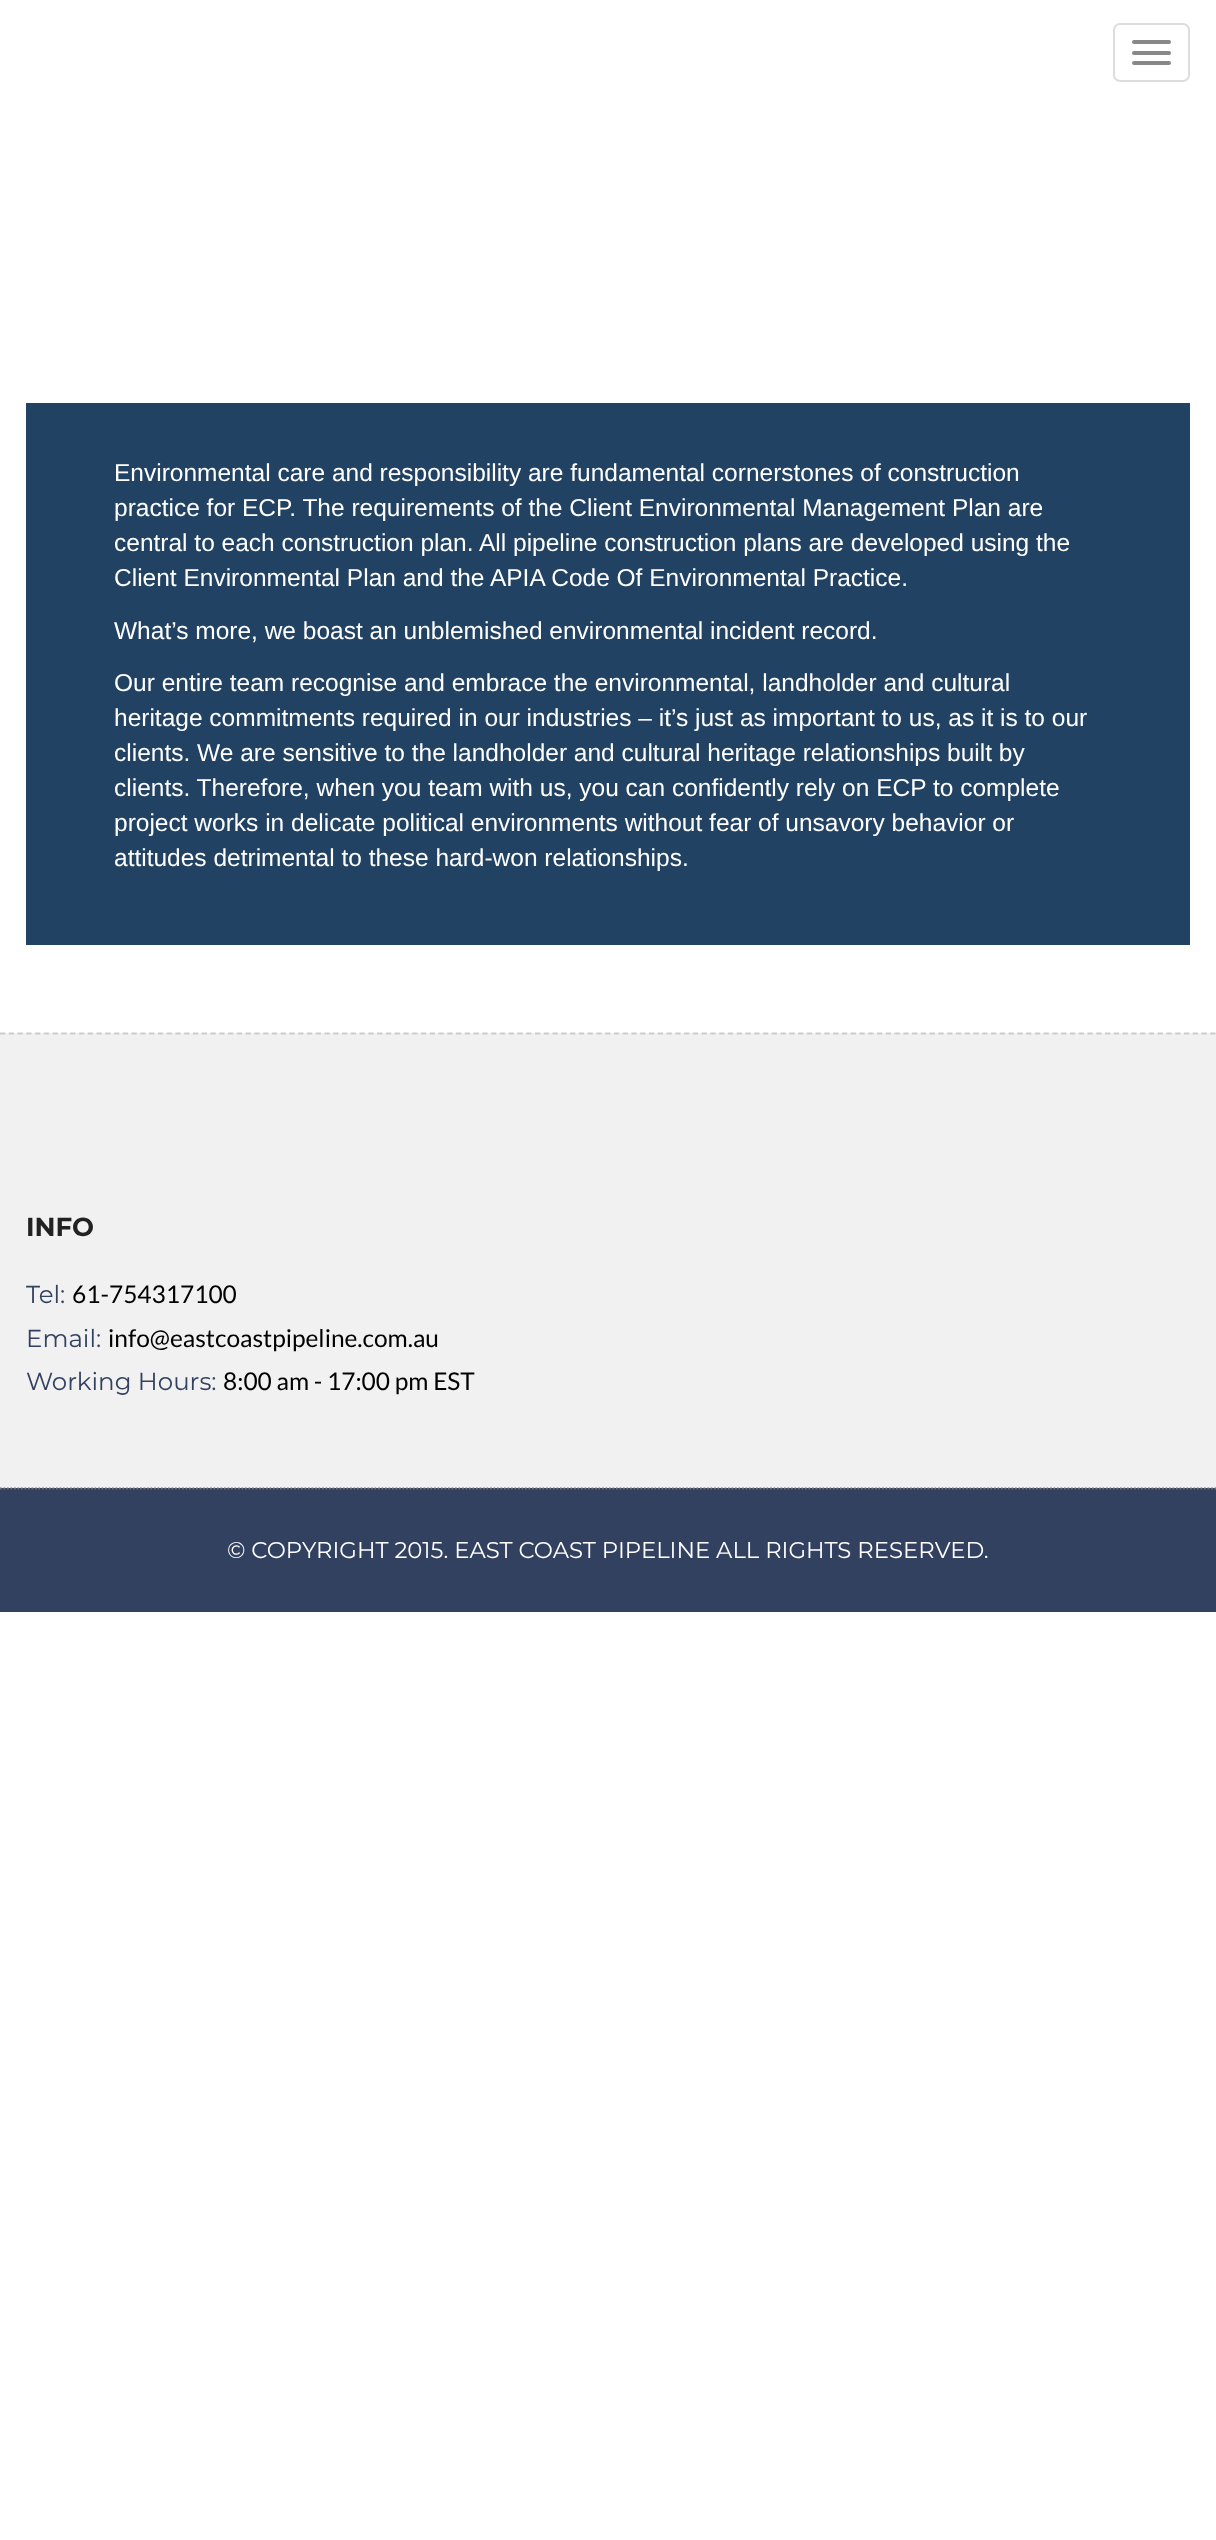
(async () => {
    const canvas = document.querySelector("canvas");
    canvas.width = 1216;
    canvas.height = 2540;
    const context = canvas.getContext("2d");
    context.miterLimit = 4;
    context.fontKerning = "normal";
    function write(s, x, y, font, color) {
        context.font = font;
        context.fillStyle = color;
        context.fillText(s, x, y);
    }
    function block(x, y, w, h, color) {
        context.fillStyle = color;
        context.fillRect(x, y, w, h);
    }
    function card(x, y, w, h, r, color) {
        context.fillStyle = color;
        context.beginPath();
        context.roundRect(x, y, w, h, r);
        context.fill();
    }

    block(0, 0, 1216, 2540, "rgb(255, 255, 255)");
    context.beginPath();
    context.roundRect(1114, 24, 75, 57, 6);
    context.strokeStyle = "rgb(221, 221, 221)";
    context.lineWidth = 2;
    context.stroke();
    card(1132, 40, 39, 4, 2, "rgb(136, 136, 136)");
    card(1132, 51, 39, 4, 2, "rgb(136, 136, 136)");
    card(1132, 61, 39, 4, 2, "rgb(136, 136, 136)");
    block(26, 403, 1164, 542, "rgb(33, 66, 99)");
    write("Environmental care and responsibility are fundamental cornerstones of construction", 114, 481, "24.5px Liberation Sans", "rgb(255, 255, 255)");
    write("practice for ECP. The requirements of the Client Environmental Management Plan are", 114, 516, "24.5px Liberation Sans", "rgb(255, 255, 255)");
    write("central to each construction plan. All pipeline construction plans are developed using the", 114, 551, "24.5px Liberation Sans", "rgb(255, 255, 255)");
    write("Client Environmental Plan and the APIA Code Of Environmental Practice.", 114, 586, "24.5px Liberation Sans", "rgb(255, 255, 255)");
    write("What’s more, we boast an unblemished environmental incident record.", 114, 639, "24.5px Liberation Sans", "rgb(255, 255, 255)");
    write("Our entire team recognise and embrace the environmental, landholder and cultural", 114, 691, "24.5px Liberation Sans", "rgb(255, 255, 255)");
    write("heritage commitments required in our industries – it’s just as important to us, as it is to our", 114, 726, "24.5px Liberation Sans", "rgb(255, 255, 255)");
    write("clients. We are sensitive to the landholder and cultural heritage relationships built by", 114, 761, "24.5px Liberation Sans", "rgb(255, 255, 255)");
    write("clients. Therefore, when you team with us, you can confidently rely on ECP to complete", 114, 796, "24.5px Liberation Sans", "rgb(255, 255, 255)");
    write("project works in delicate political environments without fear of unsavory behavior or", 114, 831, "24.5px Liberation Sans", "rgb(255, 255, 255)");
    write("attitudes detrimental to these hard-won relationships.", 114, 866, "24.5px Liberation Sans", "rgb(255, 255, 255)");
    block(0, 1033, 1216, 455, "rgb(241, 241, 241)");
    context.beginPath();
    context.moveTo(0, 1033.5);
    context.lineTo(1216, 1033.5);
    context.strokeStyle = "rgb(204, 204, 204)";
    context.lineWidth = 1.8;
    context.setLineDash([5.25, 3.52]);
    context.stroke();
    write("INFO", 26, 1236, "bold 26px Montserrat", "rgb(34, 34, 34)");
    write("Tel:", 26, 1303, "24.5px Montserrat", "rgb(51, 65, 96)");
    write("61-754317100", 72, 1303, "24.5px Lato", "rgb(0, 0, 0)");
    write("Email:", 26, 1347, "24.5px Montserrat", "rgb(51, 65, 96)");
    write("info@eastcoastpipeline.com.au", 108, 1347, "24.5px Lato", "rgb(0, 0, 0)");
    write("Working Hours:", 26, 1390, "24.5px Montserrat", "rgb(51, 65, 96)");
    write("8:00 am - 17:00 pm EST", 223, 1390, "24.5px Lato", "rgb(0, 0, 0)");
    block(0, 1488, 1216, 124, "rgb(51, 65, 96)");
    context.beginPath();
    context.moveTo(0, 1488.5);
    context.lineTo(1216, 1488.5);
    context.strokeStyle = "rgb(113, 113, 115)";
    context.setLineDash([1.75, 1.75]);
    context.stroke();
    write("© COPYRIGHT 2015. EAST COAST PIPELINE ALL RIGHTS RESERVED.", 227, 1558, "22.75px Montserrat", "rgb(255, 255, 255)");
})();
